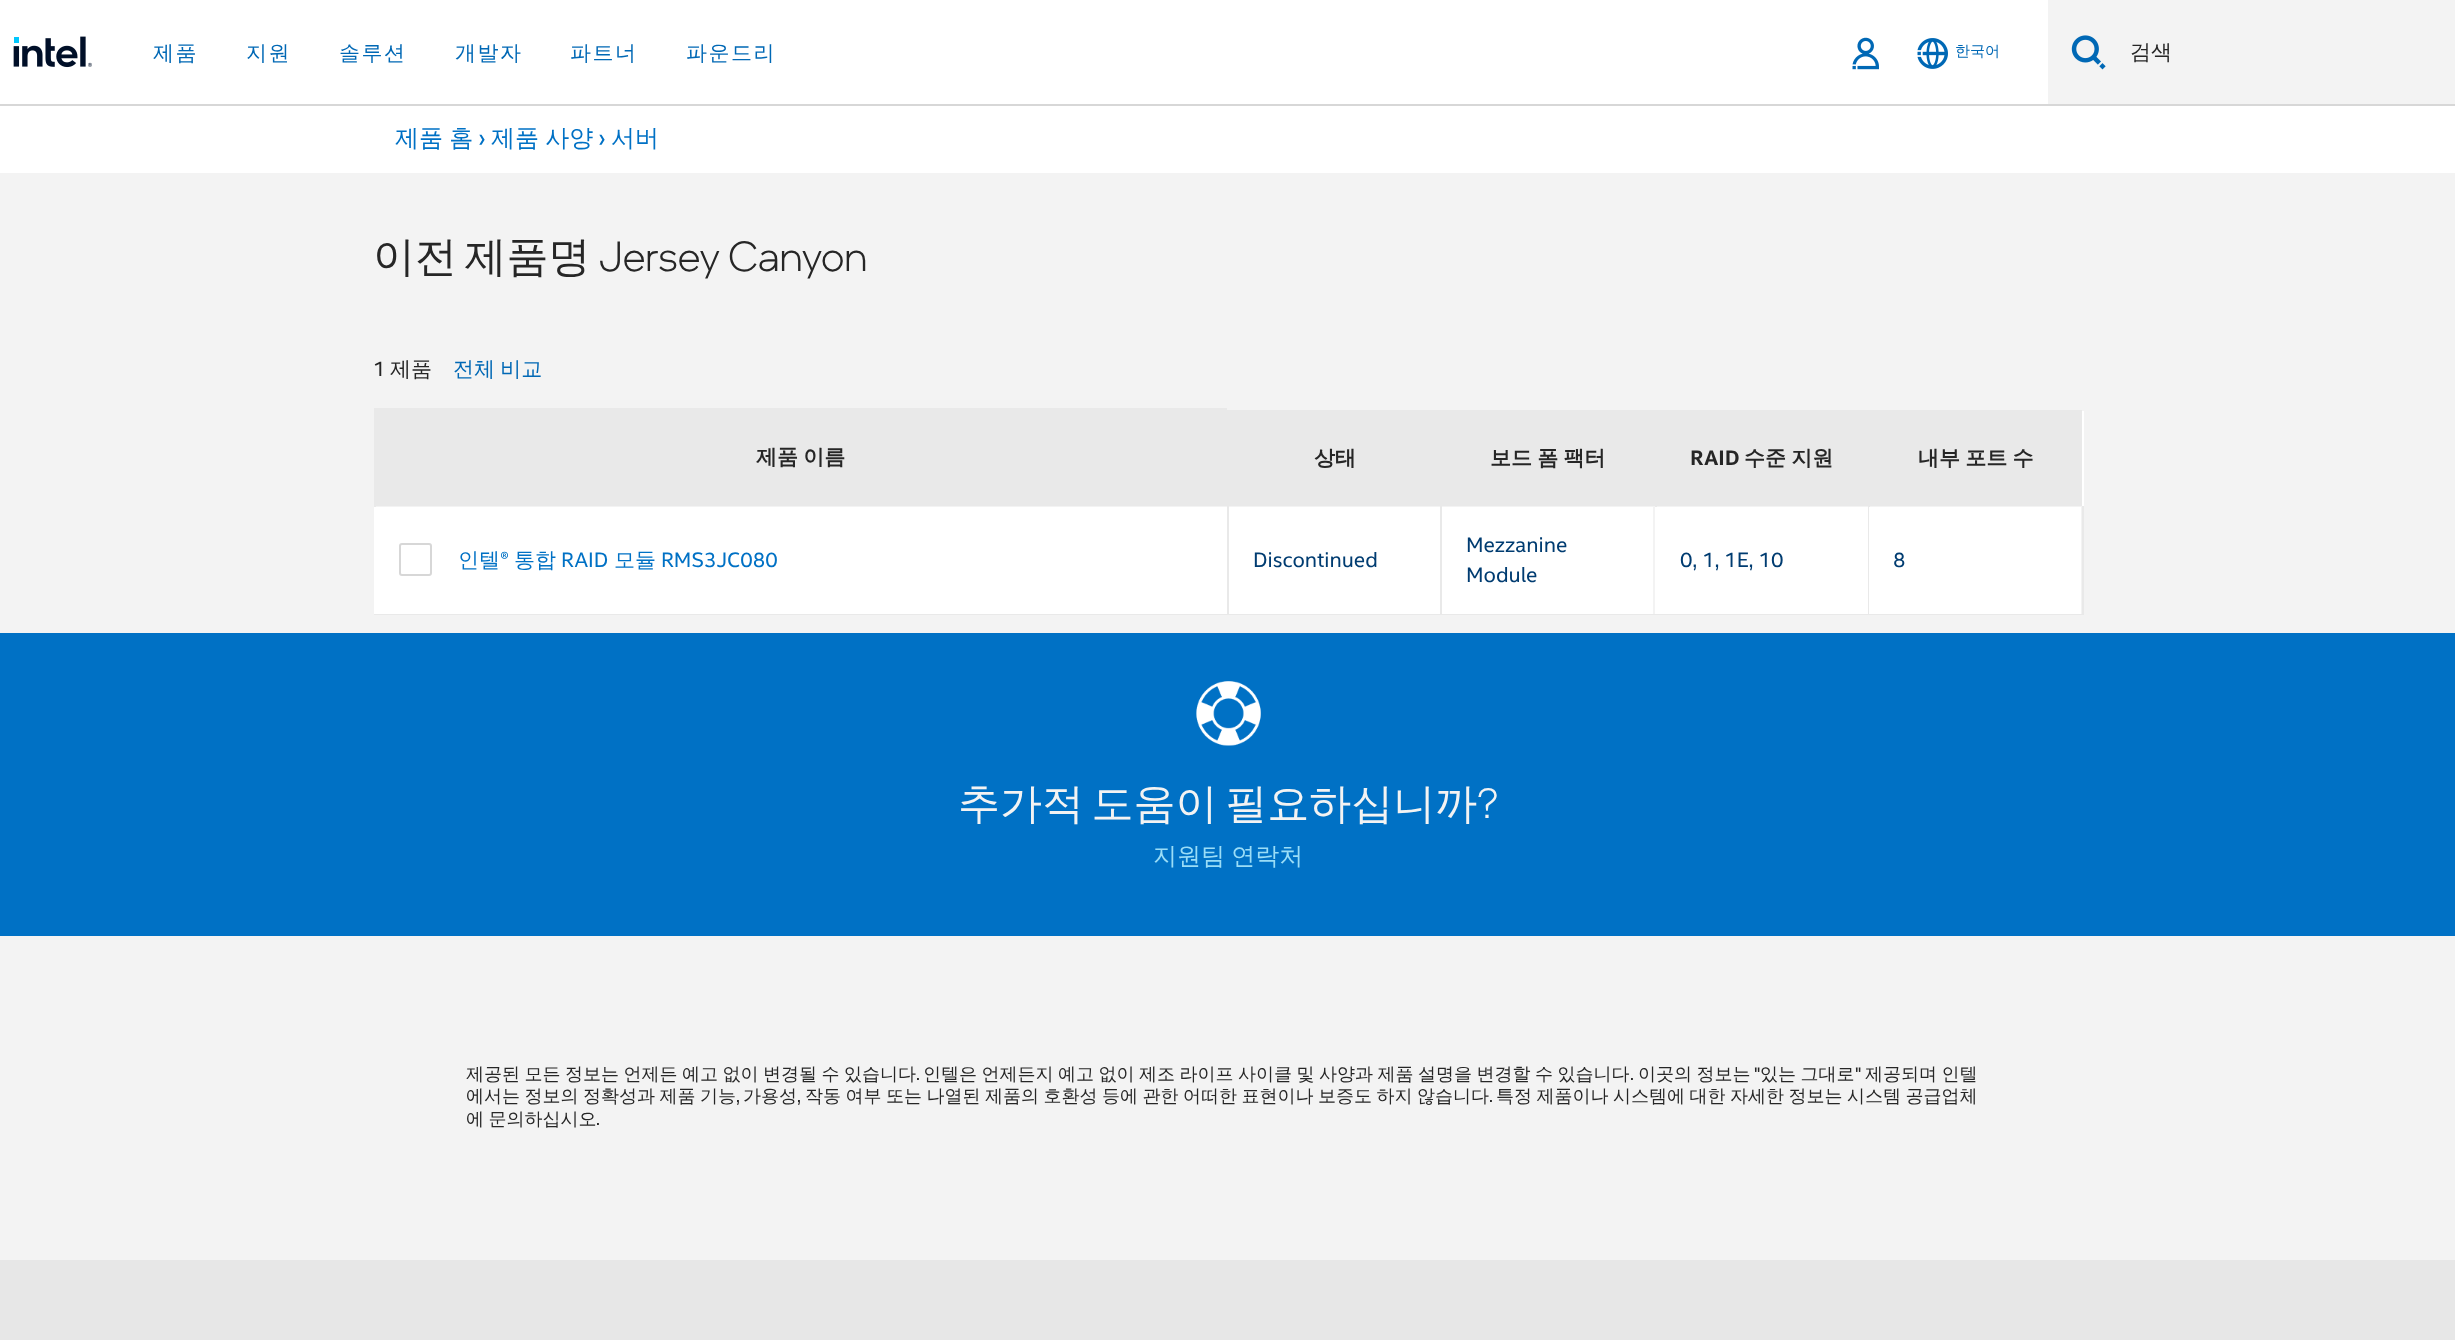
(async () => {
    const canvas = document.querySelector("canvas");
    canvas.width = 2455;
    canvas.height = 1340;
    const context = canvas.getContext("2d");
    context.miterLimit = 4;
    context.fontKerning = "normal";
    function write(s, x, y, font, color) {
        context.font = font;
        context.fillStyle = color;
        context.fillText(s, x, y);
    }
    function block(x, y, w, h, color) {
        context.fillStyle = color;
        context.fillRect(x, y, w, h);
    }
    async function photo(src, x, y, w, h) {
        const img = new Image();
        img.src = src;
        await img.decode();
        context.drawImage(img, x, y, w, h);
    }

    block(0, 0, 2455, 1340, "rgb(255, 255, 255)");
    block(0, 104, 2455, 2, "rgb(215, 215, 215)");
    await photo("media/1.png", 13, 36, 79, 32);
    context.letterSpacing = "1.5px";
    write("제품", 153, 60, "500 21px WenQuanYi Zen Hei", "rgb(0, 104, 181)");
    write("지원", 246, 60, "500 21px WenQuanYi Zen Hei", "rgb(0, 104, 181)");
    write("솔루션", 339, 60, "500 21px WenQuanYi Zen Hei", "rgb(0, 104, 181)");
    write("개발자", 455, 60, "500 21px WenQuanYi Zen Hei", "rgb(0, 104, 181)");
    write("파트너", 570, 60, "500 21px WenQuanYi Zen Hei", "rgb(0, 104, 181)");
    write("파운드리", 686, 60, "500 21px WenQuanYi Zen Hei", "rgb(0, 104, 181)");
    await photo("media/2.png", 1852, 37, 27, 33);
    await photo("media/3.png", 1917, 38, 31, 31);
    context.letterSpacing = "0px";
    write("한국어", 1955, 56, "500 15px WenQuanYi Zen Hei", "rgb(0, 104, 181)");
    block(2048, 0, 407, 104, "rgb(243, 243, 243)");
    await photo("media/4.png", 2071, 35, 35, 35);
    write("검색", 2130, 59, "500 21px WenQuanYi Zen Hei", "rgb(38, 38, 38)");
    block(0, 173, 2455, 1087, "rgb(243, 243, 243)");
    context.wordSpacing = "-1px";
    write("제품 홈", 395, 146, "500 24px WenQuanYi Zen Hei", "rgb(0, 113, 197)");
    context.wordSpacing = "0px";
    write("›", 478, 146, "24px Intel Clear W", "rgb(0, 113, 197)");
    context.wordSpacing = "-1px";
    write("제품 사양", 491, 146, "500 24px WenQuanYi Zen Hei", "rgb(0, 113, 197)");
    context.wordSpacing = "0px";
    write("›", 598, 146, "24px Intel Clear W", "rgb(0, 113, 197)");
    write("서버", 611, 146, "500 24px WenQuanYi Zen Hei", "rgb(0, 113, 197)");
    context.wordSpacing = "-5px";
    write("이전 제품명", 373, 271, "500 42px WenQuanYi Zen Hei", "rgb(38, 38, 38)");
    context.wordSpacing = "0px";
    write("Jersey Canyon", 599, 271, "300 42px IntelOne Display", "rgb(38, 38, 38)");
    write("1", 373, 376, "21px Intel Clear W", "rgb(38, 38, 38)");
    write("제품", 390, 376, "500 21px WenQuanYi Zen Hei", "rgb(38, 38, 38)");
    context.wordSpacing = "-1px";
    write("전체 비교", 453, 376, "500 21px WenQuanYi Zen Hei", "rgb(0, 104, 181)");
    block(374, 408, 853, 2, "rgb(233, 233, 233)");
    block(374, 614, 1710, 1, "rgb(233, 233, 233)");
    block(374, 408, 2, 207, "rgb(233, 233, 233)");
    block(1227, 504, 2, 111, "rgb(233, 233, 233)");
    block(1440, 504, 2, 111, "rgb(233, 233, 233)");
    block(1655, 504, 2, 111, "rgb(233, 233, 233)");
    block(1868, 504, 2, 111, "rgb(233, 233, 233)");
    block(376, 410, 1706, 96, "rgb(233, 233, 233)");
    write("제품 이름", 756, 464, "bold 21px WenQuanYi Zen Hei", "rgb(38, 38, 38)");
    context.wordSpacing = "0px";
    write("상태", 1314, 465, "bold 21px WenQuanYi Zen Hei", "rgb(38, 38, 38)");
    context.wordSpacing = "-1px";
    write("보드 폼 팩터", 1490, 465, "bold 21px WenQuanYi Zen Hei", "rgb(38, 38, 38)");
    context.wordSpacing = "0px";
    write("RAID", 1690, 465, "bold 21px Intel Clear W", "rgb(38, 38, 38)");
    context.wordSpacing = "-1px";
    write("수준 지원", 1744, 465, "bold 21px WenQuanYi Zen Hei", "rgb(38, 38, 38)");
    block(2082, 504, 2, 111, "rgb(233, 233, 233)");
    block(2082, 408, 2, 98, "rgb(255, 255, 255)");
    block(2082, 408, 2, 3, "rgb(243, 243, 243)");
    write("내부 포트 수", 1918, 465, "bold 21px WenQuanYi Zen Hei", "rgb(38, 38, 38)");
    block(374, 507, 853, 107, "rgb(255, 255, 255)");
    context.beginPath();
    context.roundRect(400, 544, 31, 31, 2);
    context.strokeStyle = "rgb(215, 215, 215)";
    context.lineWidth = 2;
    context.stroke();
    context.wordSpacing = "0px";
    write("인텔", 458, 567, "500 21px WenQuanYi Zen Hei", "rgb(0, 113, 197)");
    write("®", 500, 567, "21px Intel Clear W", "rgb(0, 113, 197)");
    write("통합", 514, 567, "500 21px WenQuanYi Zen Hei", "rgb(0, 113, 197)");
    write("RAID", 561, 567, "21px Intel Clear W", "rgb(0, 113, 197)");
    write("모듈", 614, 567, "500 21px WenQuanYi Zen Hei", "rgb(0, 113, 197)");
    write("RMS3JC080", 661, 567, "21px Intel Clear W", "rgb(0, 113, 197)");
    block(1229, 507, 211, 107, "rgb(255, 255, 255)");
    write("Discontinued", 1253, 567, "21px Intel Clear W", "rgb(0, 60, 113)");
    block(1442, 507, 211, 107, "rgb(255, 255, 255)");
    write("Mezzanine", 1466, 552, "21px Intel Clear W", "rgb(0, 60, 113)");
    write("Module", 1466, 582, "21px Intel Clear W", "rgb(0, 60, 113)");
    block(1655, 507, 213, 107, "rgb(255, 255, 255)");
    write("0, 1, 1E, 10", 1680, 567, "21px Intel Clear W", "rgb(0, 60, 113)");
    block(1869, 507, 212, 107, "rgb(255, 255, 255)");
    write("8", 1893, 567, "21px Intel Clear W", "rgb(0, 60, 113)");
    block(0, 633, 2455, 303, "rgb(0, 113, 197)");
    await photo("media/5.png", 1196, 681, 65, 65);
    context.wordSpacing = "-5px";
    write("추가적 도움이 필요하십니까", 958, 818, "500 42px WenQuanYi Zen Hei", "rgb(243, 243, 243)");
    context.wordSpacing = "0px";
    write("?", 1478, 818, "300 42px IntelOne Display", "rgb(243, 243, 243)");
    context.wordSpacing = "-1px";
    write("지원팀 연락처", 1153, 864, "500 24px WenQuanYi Zen Hei", "rgb(154, 221, 247)");
    context.wordSpacing = "-0.9px";
    write("제공된 모든 정보는 언제든 예고 없이 변경될 수 있습니다", 466, 1080, "500 18px WenQuanYi Zen Hei", "rgb(38, 38, 38)");
    write("인텔은 언제든지 예고 없이 제조 라이프 사이클 및 사양과 제품 설명을 변경할 수 있습니다", 923, 1080, "500 18px WenQuanYi Zen Hei", "rgb(38, 38, 38)");
    write("이곳의 정보는", 1638, 1080, "500 18px WenQuanYi Zen Hei", "rgb(38, 38, 38)");
    context.wordSpacing = "0px";
    write("\"", 1754, 1080, "18px Intel Clear W", "rgb(38, 38, 38)");
    context.wordSpacing = "-0.9px";
    write("있는 그대로", 1760, 1080, "500 18px WenQuanYi Zen Hei", "rgb(38, 38, 38)");
    context.wordSpacing = "0px";
    write("\"", 1855, 1080, "18px Intel Clear W", "rgb(38, 38, 38)");
    context.wordSpacing = "-0.9px";
    write("제공되며 인텔", 1865, 1080, "500 18px WenQuanYi Zen Hei", "rgb(38, 38, 38)");
    context.wordSpacing = "0px";
    write(".", 916, 1080, "18px Intel Clear W", "rgb(38, 38, 38)");
    write(".", 1630, 1080, "18px Intel Clear W", "rgb(38, 38, 38)");
    context.wordSpacing = "-0.9px";
    write("에서는 정보의 정확성과 제품 기능", 466, 1102, "500 18px WenQuanYi Zen Hei", "rgb(38, 38, 38)");
    context.wordSpacing = "0px";
    write(",", 736, 1102, "18px Intel Clear W", "rgb(38, 38, 38)");
    write("가용성", 743, 1102, "500 18px WenQuanYi Zen Hei", "rgb(38, 38, 38)");
    write(",", 797, 1102, "18px Intel Clear W", "rgb(38, 38, 38)");
    context.wordSpacing = "-0.9px";
    write("작동 여부 또는 나열된 제품의 호환성 등에 관한 어떠한 표현이나 보증도 하지 않습니다", 805, 1102, "500 18px WenQuanYi Zen Hei", "rgb(38, 38, 38)");
    context.wordSpacing = "0px";
    write(".", 1489, 1102, "18px Intel Clear W", "rgb(38, 38, 38)");
    context.wordSpacing = "-0.9px";
    write("특정 제품이나 시스템에 대한 자세한 정보는 시스템 공급업체", 1496, 1102, "500 18px WenQuanYi Zen Hei", "rgb(38, 38, 38)");
    context.wordSpacing = "-1px";
    write("에 문의하십시오", 466, 1125, "500 18px WenQuanYi Zen Hei", "rgb(38, 38, 38)");
    context.wordSpacing = "0px";
    write(".", 596, 1125, "18px Intel Clear W", "rgb(38, 38, 38)");
    block(0, 1260, 2455, 80, "rgb(231, 231, 231)");
})();
